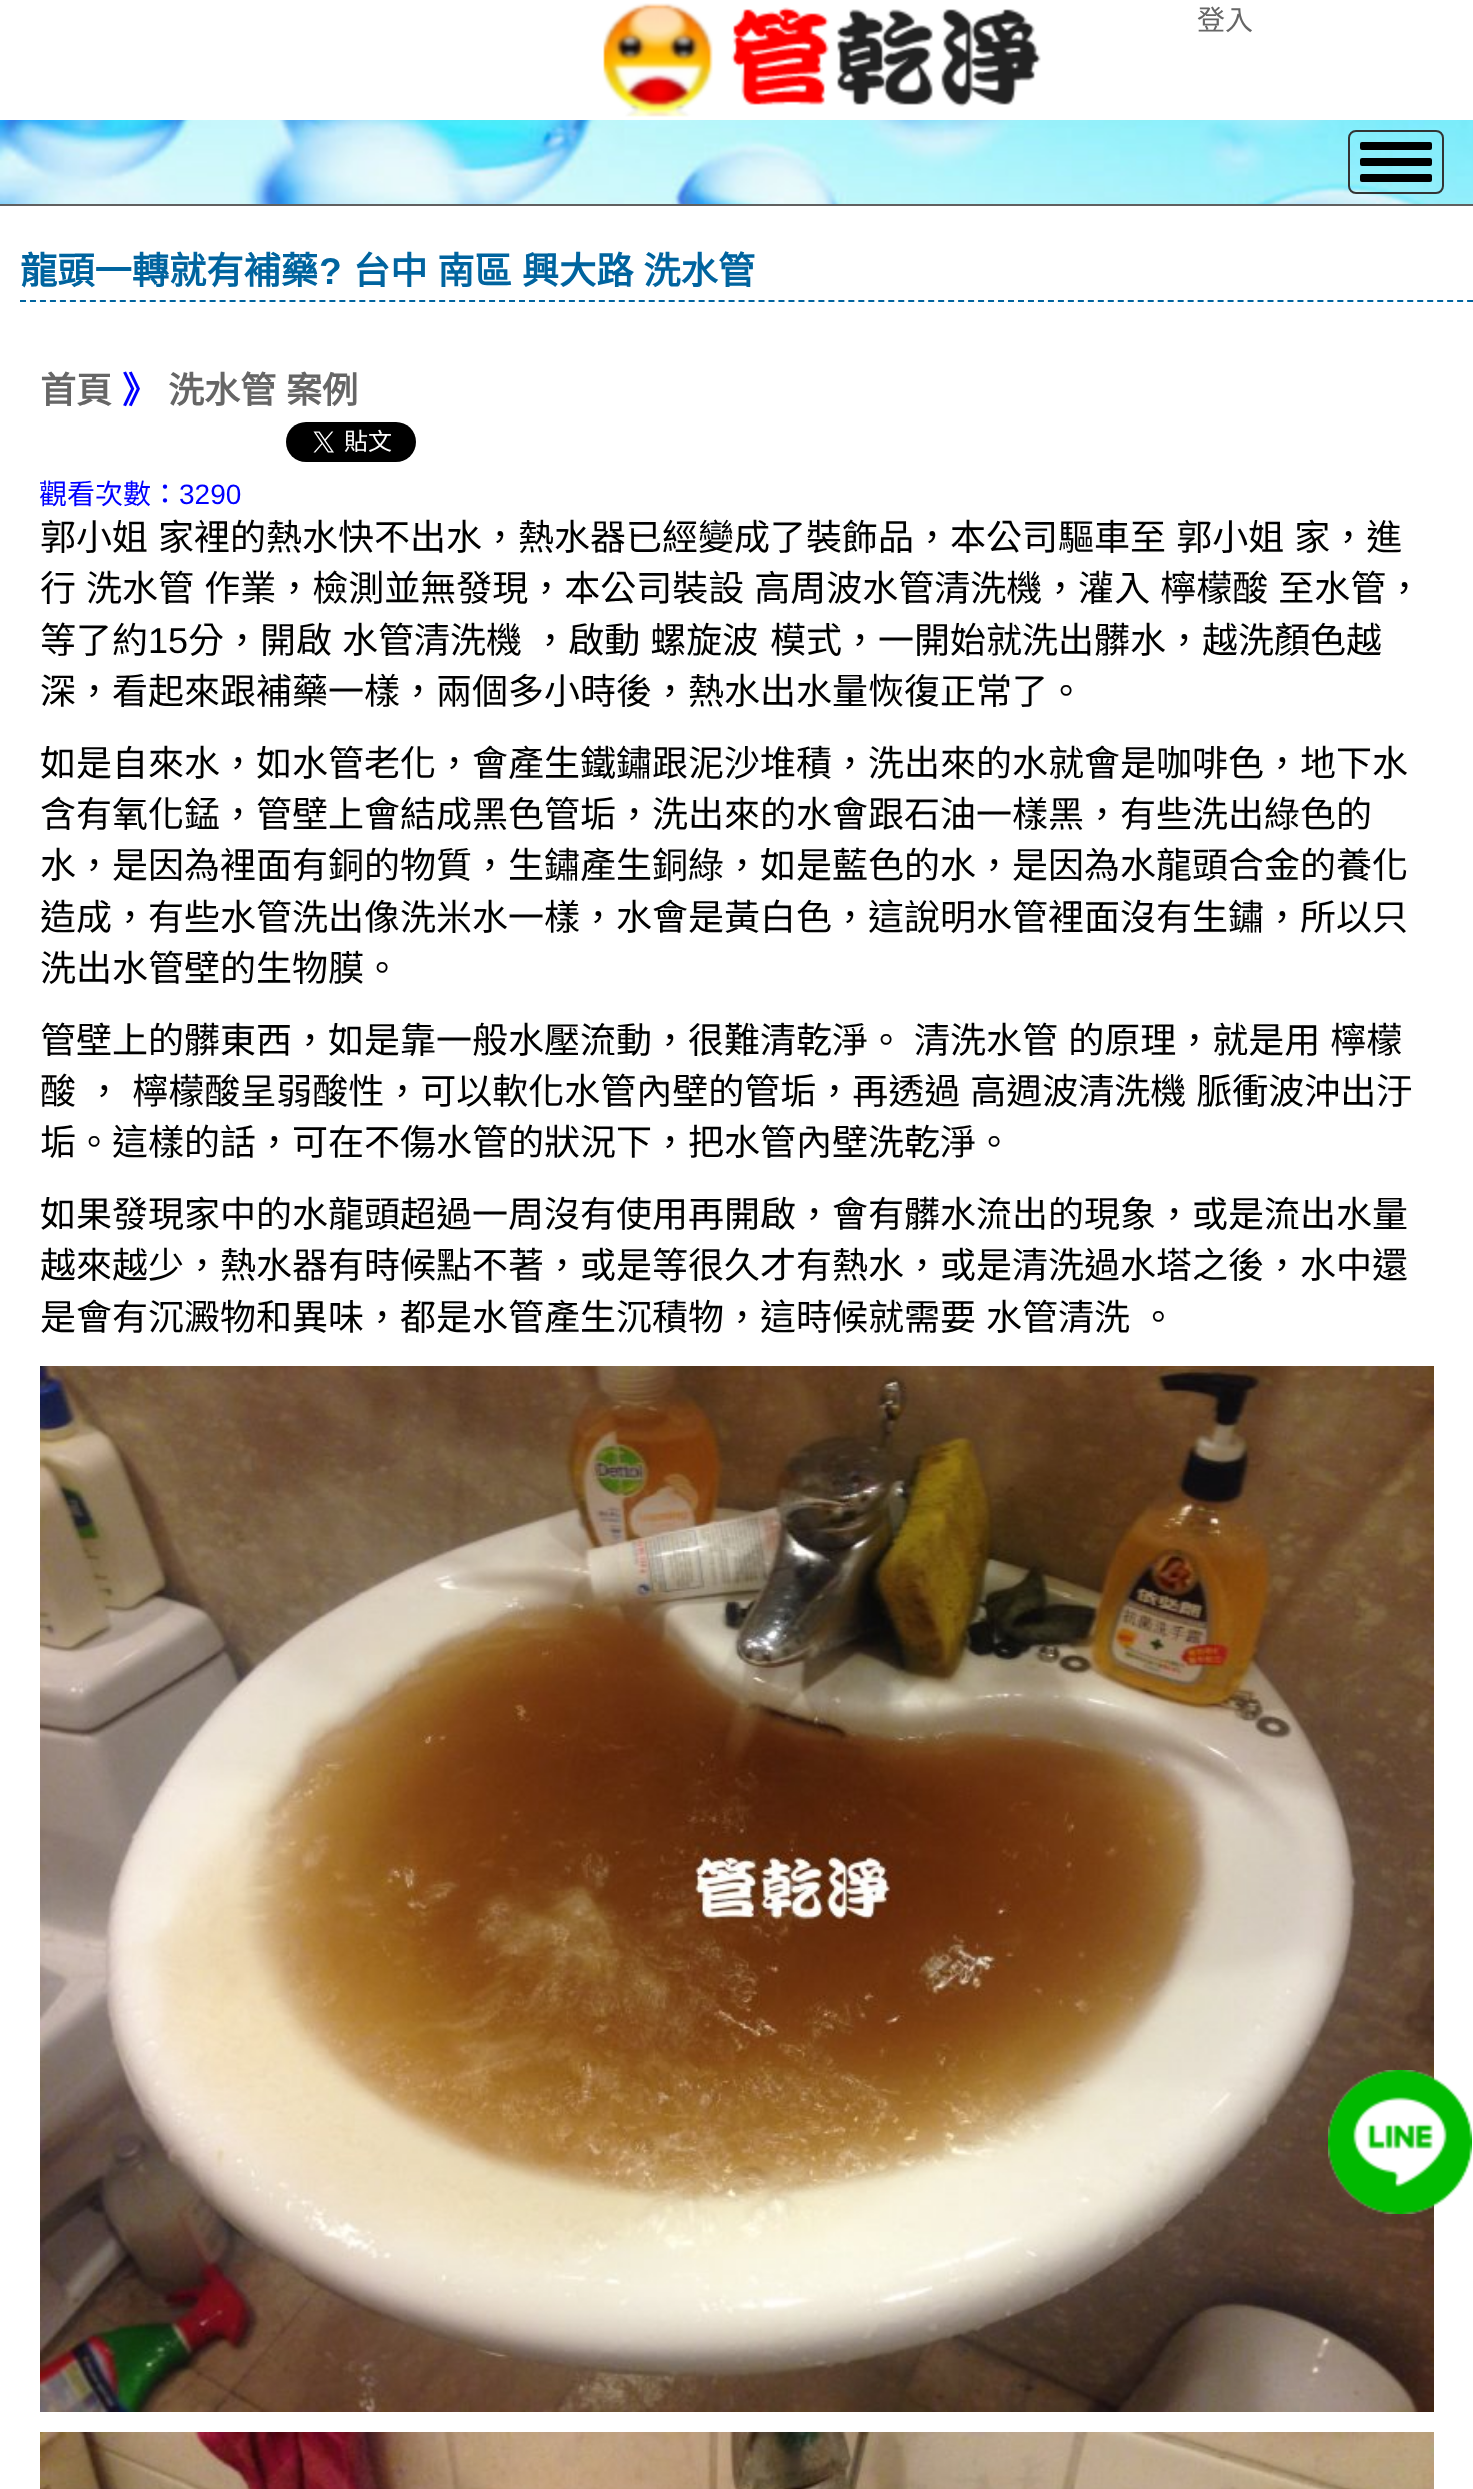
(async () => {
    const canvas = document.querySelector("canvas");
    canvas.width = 1473;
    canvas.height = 2489;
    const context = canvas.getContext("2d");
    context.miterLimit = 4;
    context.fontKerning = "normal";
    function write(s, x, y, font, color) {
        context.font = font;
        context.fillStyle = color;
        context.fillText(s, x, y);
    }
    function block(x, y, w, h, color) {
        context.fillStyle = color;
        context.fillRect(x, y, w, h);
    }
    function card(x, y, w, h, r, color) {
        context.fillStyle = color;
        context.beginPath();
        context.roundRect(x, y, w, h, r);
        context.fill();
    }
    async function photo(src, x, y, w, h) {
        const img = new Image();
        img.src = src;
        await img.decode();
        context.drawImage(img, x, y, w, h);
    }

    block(0, 0, 1473, 2489, "rgb(255, 255, 255)");
    await photo("media/1.png", 0, 120, 1473, 84);
    block(0, 204, 1473, 2, "rgb(96, 96, 96)");
    await photo("media/2.png", 603, 3, 438, 114);
    write("登入", 1197, 30, "28px Noto Sans CJK TC", "rgb(102, 102, 102)");
    context.beginPath();
    context.roundRect(1349, 131, 94, 62, 7);
    context.strokeStyle = "rgb(51, 51, 51)";
    context.lineWidth = 2;
    context.stroke();
    card(1360, 142, 72, 8, 2, "rgb(0, 0, 0)");
    card(1360, 158, 72, 8, 2, "rgb(0, 0, 0)");
    card(1360, 174, 72, 8, 2, "rgb(0, 0, 0)");
    context.beginPath();
    context.moveTo(20, 301);
    context.lineTo(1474, 301);
    context.strokeStyle = "rgb(0, 100, 159)";
    context.setLineDash([6, 3.98]);
    context.stroke();
    write("龍頭一轉就有補藥", 20, 284, "bold 37.25px Noto Sans CJK TC", "rgb(0, 100, 159)");
    write("?", 319, 284, "bold 37.25px Liberation Sans", "rgb(0, 100, 159)");
    context.wordSpacing = "1.5px";
    write("台中 南區 興大路 洗水管", 353, 284, "bold 37.25px Noto Sans CJK TC", "rgb(0, 100, 159)");
    context.wordSpacing = "0px";
    write("首頁", 40, 403, "bold 36px Noto Sans CJK TC", "rgb(102, 102, 102)");
    write("》", 122, 403, "bold 36px Noto Sans CJK TC", "rgb(0, 0, 255)");
    context.wordSpacing = "2px";
    write("洗水管 案例", 168, 403, "bold 36px Noto Sans CJK TC", "rgb(102, 102, 102)");
    await photo("media/3.png", 286, 422, 130, 40);
    context.wordSpacing = "0px";
    write("觀看次數：", 39, 504, "28px Noto Sans CJK TC", "rgb(0, 0, 255)");
    write("3290", 179, 504, "28px Liberation Sans", "rgb(0, 0, 255)");
    context.wordSpacing = "2px";
    write("郭小姐 家裡的熱水快不出水，熱水器已經變成了裝飾品，本公司驅車至 郭小姐 家，進", 40, 550, "36px Noto Sans CJK TC", "rgb(0, 0, 0)");
    write("行 洗水管 作業，檢測並無發現，本公司裝設 高周波水管清洗機，灌入 檸檬酸 至水管，", 40, 601, "36px Noto Sans CJK TC", "rgb(0, 0, 0)");
    context.wordSpacing = "0px";
    write("等了約", 40, 653, "36px Noto Sans CJK TC", "rgb(0, 0, 0)");
    write("15", 148, 653, "36px Liberation Sans", "rgb(0, 0, 0)");
    context.wordSpacing = "2px";
    write("分，開啟 水管清洗機 ，啟動 螺旋波", 188, 653, "36px Noto Sans CJK TC", "rgb(0, 0, 0)");
    context.wordSpacing = "0px";
    write("模式，一開始就洗出髒水，越洗顏色越", 770, 653, "36px Noto Sans CJK TC", "rgb(0, 0, 0)");
    write("深，看起來跟補藥一樣，兩個多小時後，熱水出水量恢復正常了。", 40, 704, "36px Noto Sans CJK TC", "rgb(0, 0, 0)");
    write("如是自來水，如水管老化，會產生鐵鏽跟泥沙堆積，洗出來的水就會是咖啡色，地下水", 40, 776, "36px Noto Sans CJK TC", "rgb(0, 0, 0)");
    write("含有氧化錳，管壁上會結成黑色管垢，洗出來的水會跟石油一樣黑，有些洗出綠色的", 40, 827, "36px Noto Sans CJK TC", "rgb(0, 0, 0)");
    write("水，是因為裡面有銅的物質，生鏽產生銅綠，如是藍色的水，是因為水龍頭合金的養化", 40, 878, "36px Noto Sans CJK TC", "rgb(0, 0, 0)");
    write("造成，有些水管洗出像洗米水一樣，水會是黃白色，這說明水管裡面沒有生鏽，所以只", 40, 930, "36px Noto Sans CJK TC", "rgb(0, 0, 0)");
    write("洗出水管壁的生物膜。", 40, 981, "36px Noto Sans CJK TC", "rgb(0, 0, 0)");
    context.wordSpacing = "2px";
    write("管壁上的髒東西，如是靠一般水壓流動，很難清乾淨。 清洗水管 的原理，就是用 檸檬", 40, 1053, "36px Noto Sans CJK TC", "rgb(0, 0, 0)");
    write("酸 ， 檸檬酸呈弱酸性，可以軟化水管內壁的管垢，再透過 高週波清洗機 脈衝波沖出汙", 40, 1104, "36px Noto Sans CJK TC", "rgb(0, 0, 0)");
    context.wordSpacing = "0px";
    write("垢。這樣的話，可在不傷水管的狀況下，把水管內壁洗乾淨。", 40, 1155, "36px Noto Sans CJK TC", "rgb(0, 0, 0)");
    write("如果發現家中的水龍頭超過一周沒有使用再開啟，會有髒水流出的現象，或是流出水量", 40, 1227, "36px Noto Sans CJK TC", "rgb(0, 0, 0)");
    write("越來越少，熱水器有時候點不著，或是等很久才有熱水，或是清洗過水塔之後，水中還", 40, 1278, "36px Noto Sans CJK TC", "rgb(0, 0, 0)");
    context.wordSpacing = "2px";
    write("是會有沉澱物和異味，都是水管產生沉積物，這時候就需要 水管清洗 。", 40, 1330, "36px Noto Sans CJK TC", "rgb(0, 0, 0)");
    await photo("media/4.png", 40, 1366, 1394, 1046);
    await photo("media/5.png", 40, 2432, 1394, 57);
    await photo("media/6.png", 1328, 2070, 144, 144);
})();
